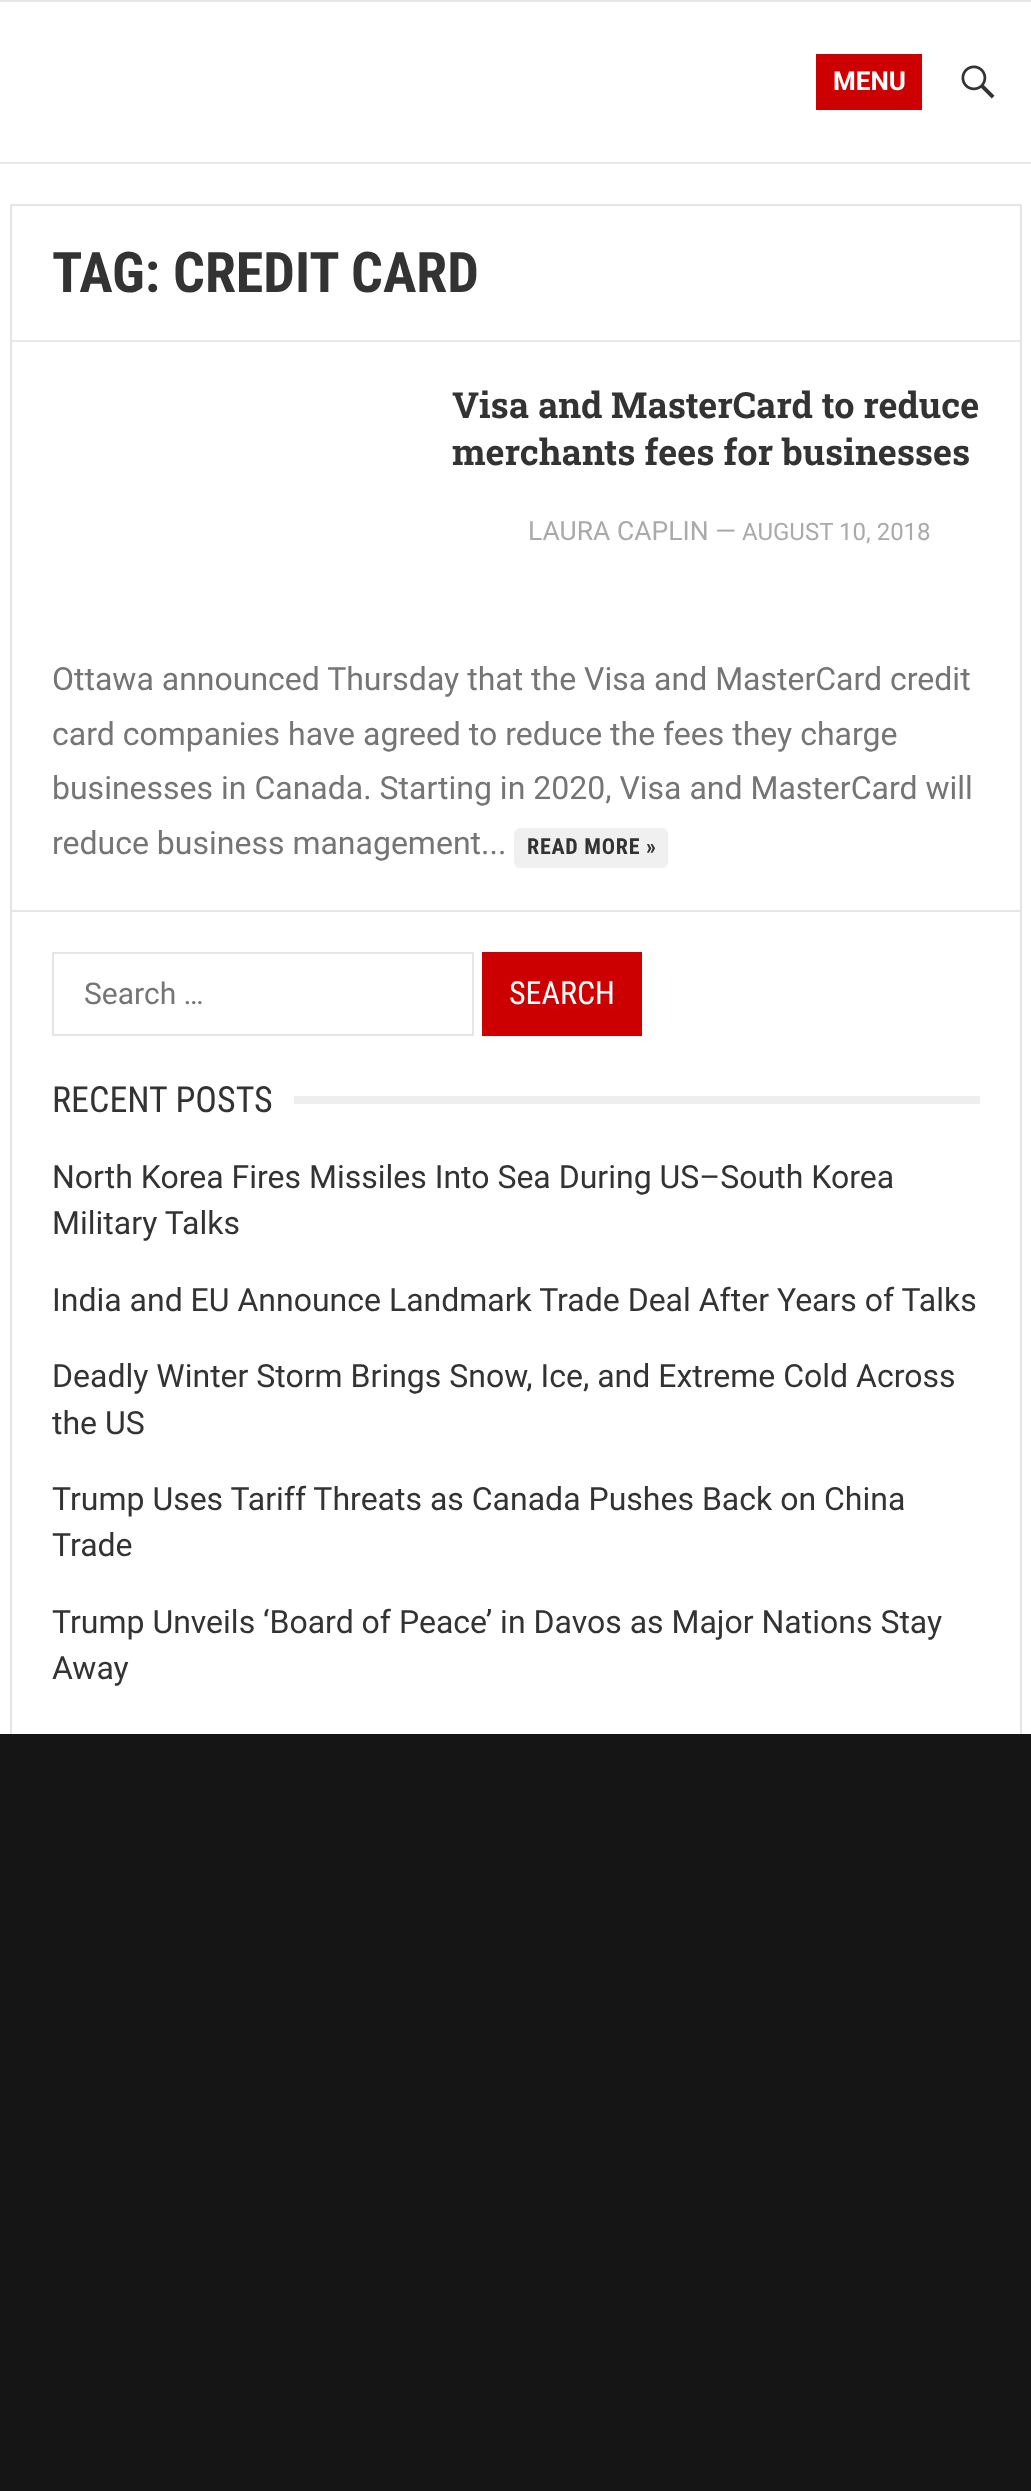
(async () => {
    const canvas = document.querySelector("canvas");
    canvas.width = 1031;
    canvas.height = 2491;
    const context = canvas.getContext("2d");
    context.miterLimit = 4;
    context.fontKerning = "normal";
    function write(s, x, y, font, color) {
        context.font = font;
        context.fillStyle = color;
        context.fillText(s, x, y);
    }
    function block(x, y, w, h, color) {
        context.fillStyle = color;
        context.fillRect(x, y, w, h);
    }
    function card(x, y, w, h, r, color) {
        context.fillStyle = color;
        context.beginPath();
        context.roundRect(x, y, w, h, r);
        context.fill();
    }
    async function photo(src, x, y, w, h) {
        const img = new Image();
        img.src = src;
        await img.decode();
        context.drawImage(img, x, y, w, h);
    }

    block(0, 0, 1031, 2491, "rgb(255, 255, 255)");
    block(0, 162, 1031, 2, "rgb(233, 233, 233)");
    block(0, 0, 1031, 2, "rgb(229, 229, 229)");
    block(816, 54, 106, 56, "rgb(204, 0, 0)");
    write("MENU", 833, 90, "bold 26px Roboto", "rgb(255, 255, 255)");
    await photo("media/1.png", 961, 65, 34, 34);
    block(10, 204, 1012, 2, "rgb(229, 229, 229)");
    block(1020, 204, 2, 1530, "rgb(229, 229, 229)");
    block(10, 204, 2, 1530, "rgb(229, 229, 229)");
    block(12, 340, 1008, 2, "rgb(233, 233, 233)");
    write("TAG: CREDIT CARD", 52, 292, "bold 56px Roboto Condensed", "rgb(51, 51, 51)");
    write("Visa and MasterCard to reduce", 452, 418, "bold 36px Roboto Slab", "rgb(51, 51, 51)");
    write("merchants fees for businesses", 452, 465, "bold 36px Roboto Slab", "rgb(51, 51, 51)");
    write("LAURA CAPLIN —", 528, 540, "26.5px Roboto", "rgb(170, 170, 170)");
    write("AUGUST 10, 2018", 742, 540, "24px Roboto", "rgb(170, 170, 170)");
    write("Ottawa announced Thursday that the Visa and MasterCard credit", 52, 690, "32px Roboto", "rgb(117, 117, 117)");
    write("card companies have agreed to reduce the fees they charge", 52, 745, "32px Roboto", "rgb(117, 117, 117)");
    write("businesses in Canada. Starting in 2020, Visa and MasterCard will", 52, 799, "32px Roboto", "rgb(117, 117, 117)");
    write("reduce business management...", 52, 854, "32px Roboto", "rgb(117, 117, 117)");
    card(514, 828, 154, 40, 6, "rgb(240, 240, 240)");
    context.letterSpacing = "0.75px";
    write("READ MORE »", 527, 854, "bold 22px Roboto Condensed", "rgb(51, 51, 51)");
    block(12, 910, 1008, 2, "rgb(229, 229, 229)");
    context.strokeStyle = "rgb(229, 229, 229)";
    context.lineWidth = 2;
    context.strokeRect(53, 953, 420, 82);
    context.letterSpacing = "0px";
    write("Search …", 84, 1004, "30px Roboto", "rgb(117, 117, 117)");
    block(482, 952, 160, 84, "rgb(204, 0, 0)");
    write("SEARCH", 509, 1004, "32px Roboto Condensed", "rgb(255, 255, 255)");
    write("RECENT POSTS", 52, 1112, "36px Roboto Condensed", "rgb(51, 51, 51)");
    block(294, 1096, 686, 8, "rgb(238, 238, 238)");
    write("North Korea Fires Missiles Into Sea During US–South Korea", 52, 1188, "32px Roboto", "rgb(51, 51, 51)");
    write("Military Talks", 52, 1234, "32px Roboto", "rgb(51, 51, 51)");
    write("India and EU Announce Landmark Trade Deal After Years of Talks", 52, 1311, "32px Roboto", "rgb(51, 51, 51)");
    write("Deadly Winter Storm Brings Snow, Ice, and Extreme Cold Across", 52, 1387, "32px Roboto", "rgb(51, 51, 51)");
    write("the US", 52, 1434, "32px Roboto", "rgb(51, 51, 51)");
    write("Trump Uses Tariff Threats as Canada Pushes Back on China", 52, 1510, "32px Roboto", "rgb(51, 51, 51)");
    write("Trade", 52, 1556, "32px Roboto", "rgb(51, 51, 51)");
    write("Trump Unveils ‘Board of Peace’ in Davos as Major Nations Stay", 52, 1633, "32px Roboto", "rgb(51, 51, 51)");
    write("Away", 52, 1679, "32px Roboto", "rgb(51, 51, 51)");
    block(0, 1734, 1031, 757, "rgb(21, 21, 21)");
})();
